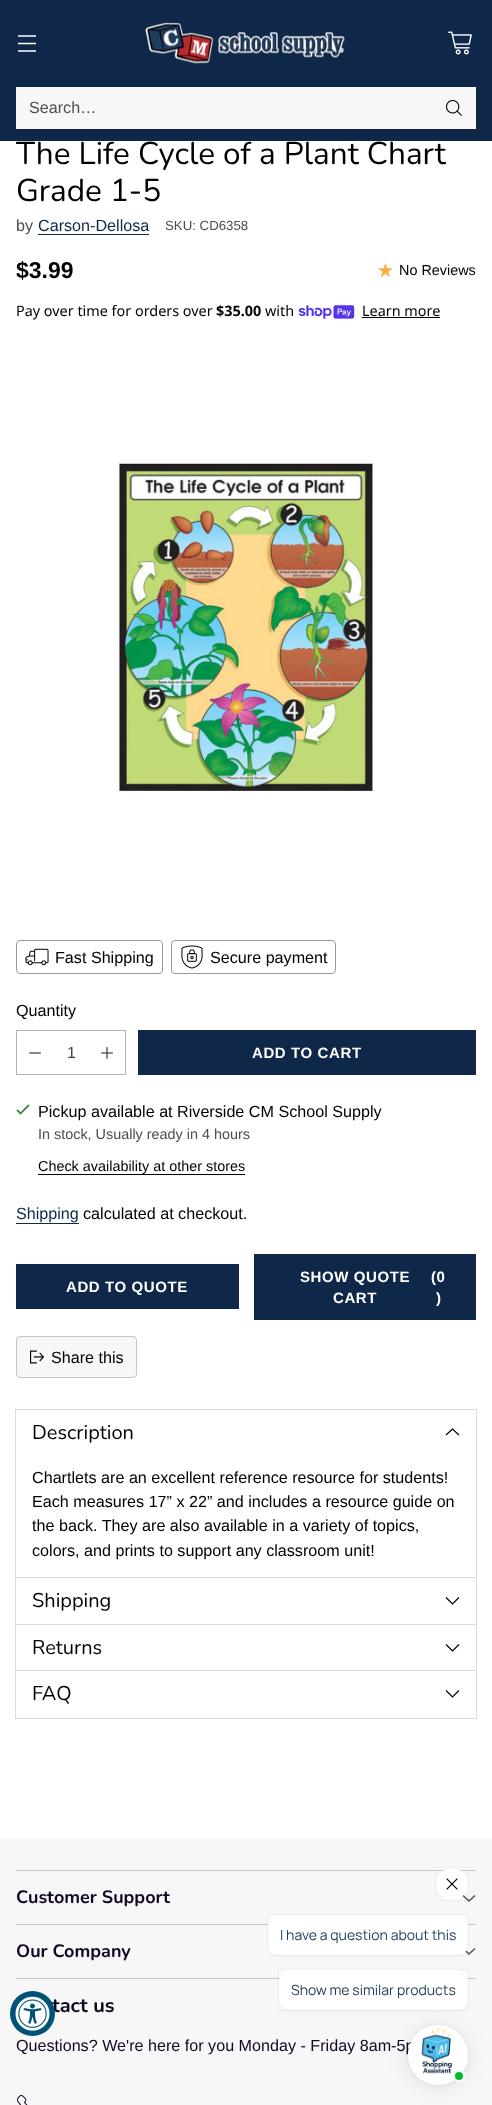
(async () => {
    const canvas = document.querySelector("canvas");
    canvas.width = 492;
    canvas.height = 2105;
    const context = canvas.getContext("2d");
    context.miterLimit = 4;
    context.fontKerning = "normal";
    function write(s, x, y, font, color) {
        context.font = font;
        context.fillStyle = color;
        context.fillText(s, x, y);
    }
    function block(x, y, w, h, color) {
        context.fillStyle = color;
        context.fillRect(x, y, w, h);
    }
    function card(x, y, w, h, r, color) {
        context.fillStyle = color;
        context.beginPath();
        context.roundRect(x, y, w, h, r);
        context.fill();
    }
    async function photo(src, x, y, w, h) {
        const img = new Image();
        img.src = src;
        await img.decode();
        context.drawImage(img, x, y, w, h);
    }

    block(0, 0, 492, 2105, "rgb(255, 255, 255)");
    block(0, 0, 492, 141, "rgb(15, 39, 72)");
    context.beginPath();
    context.moveTo(18, 43.5);
    context.lineTo(36, 43.5);
    context.moveTo(18, 36);
    context.lineTo(36, 36);
    context.moveTo(18, 51);
    context.lineTo(36, 51);
    context.strokeStyle = "rgb(255, 255, 255)";
    context.lineWidth = 1.3;
    context.stroke();
    await photo("media/1.png", 145, 22, 200, 42);
    await photo("media/2.png", 448, 31, 24, 24);
    context.strokeStyle = "rgb(248, 248, 248)";
    context.lineWidth = 1;
    context.strokeRect(16.5, 87.5, 459, 41);
    block(17, 88, 458, 40, "rgb(247, 247, 247)");
    write("Search…", 29, 113, "16.15px Arimo", "rgb(77, 77, 77)");
    await photo("media/3.png", 446, 100, 16, 16);
    write("The Life Cycle of a Plant Chart", 16, 164, "31.5px Nunito", "rgb(0, 0, 0)");
    write("Grade 1-5", 16, 201, "31.5px Nunito", "rgb(0, 0, 0)");
    write("by", 16, 231, "16.15px Arimo", "rgb(77, 77, 77)");
    write("Carson-Dellosa", 38, 231, "16.15px Arimo", "rgb(15, 39, 72)");
    block(38, 234, 111, 1, "rgb(15, 39, 72)");
    write("SKU: CD6358", 165, 230, "13.25px Arimo", "rgb(77, 77, 77)");
    write("$3.99", 16, 278, "bold 23px Arimo", "rgb(0, 0, 0)");
    await photo("media/4.png", 378, 263, 15, 14);
    write("No Reviews", 399, 275, "14.4px Arimo", "rgb(0, 0, 0)");
    write("Pay over time for orders over", 16, 316, "14.4px Noto Sans", "rgb(0, 0, 0)");
    write("$35.00", 216, 316, "bold 14.4px Noto Sans", "rgb(0, 0, 0)");
    write("with", 265, 316, "14.4px Noto Sans", "rgb(0, 0, 0)");
    await photo("media/5.png", 298, 305, 57, 14);
    write("Learn more", 362, 316, "14.4px Noto Sans", "rgb(0, 0, 0)");
    block(362, 317, 78, 1, "rgb(0, 0, 0)");
    await photo("media/6.png", 117, 463, 257, 329);
    context.beginPath();
    context.roundRect(16.5, 940.5, 146, 33, 3.5);
    context.strokeStyle = "rgb(153, 153, 153)";
    context.stroke();
    await photo("media/7.png", 25, 948, 24, 18);
    write("Fast Shipping", 55, 963, "16.15px Arimo", "rgb(0, 0, 0)");
    context.beginPath();
    context.roundRect(171.5, 940.5, 164, 33, 3.5);
    context.stroke();
    await photo("media/8.png", 181, 945, 22, 24);
    write("Secure payment", 210, 963, "16.15px Arimo", "rgb(0, 0, 0)");
    write("Quantity", 16, 1016, "16.15px Arimo", "rgb(0, 0, 0)");
    context.strokeStyle = "rgb(180, 180, 180)";
    context.strokeRect(16.5, 1030.5, 109, 44);
    await photo("media/9.png", 29, 1052, 12, 2);
    write("1", 67, 1058, "16px Arimo", "rgb(68, 68, 68)");
    await photo("media/10.png", 101, 1047, 12, 12);
    block(138, 1030, 338, 45, "rgb(15, 39, 72)");
    context.letterSpacing = "0.6px";
    write("ADD TO CART", 252, 1058, "bold 15px Arimo", "rgb(255, 255, 255)");
    context.beginPath();
    context.moveTo(17, 1110);
    context.lineTo(20.5, 1113.5);
    context.lineTo(29, 1105);
    context.strokeStyle = "rgb(71, 137, 71)";
    context.lineWidth = 1.8;
    context.stroke();
    context.letterSpacing = "0px";
    write("Pickup available at Riverside CM School Supply", 38, 1117, "16.15px Arimo", "rgb(0, 0, 0)");
    write("In stock, Usually ready in 4 hours", 38, 1139, "14.4px Arimo", "rgb(77, 77, 77)");
    write("Check availability at other stores", 38, 1171, "14.4px Arimo", "rgb(0, 0, 0)");
    block(38, 1174, 207, 1, "rgb(0, 0, 0)");
    write("Shipping", 16, 1219, "16.15px Arimo", "rgb(15, 39, 72)");
    block(16, 1223, 63, 1, "rgb(15, 39, 72)");
    write("calculated at checkout.", 83, 1219, "16.15px Arimo", "rgb(0, 0, 0)");
    block(16, 1264, 223, 45, "rgb(15, 39, 72)");
    context.letterSpacing = "0.6px";
    write("ADD TO QUOTE", 66, 1292, "bold 15px Arimo", "rgb(255, 255, 255)");
    block(254, 1254, 222, 66, "rgb(15, 39, 72)");
    write("SHOW QUOTE", 300, 1282, "bold 15px Arimo", "rgb(255, 255, 255)");
    write("(0", 431, 1282, "bold 15px Arimo", "rgb(255, 255, 255)");
    write(")", 436, 1303, "bold 15px Arimo", "rgb(255, 255, 255)");
    write("CART", 333, 1303, "bold 15px Arimo", "rgb(255, 255, 255)");
    card(16, 1336, 121, 42, 4, "rgb(247, 247, 247)");
    context.beginPath();
    context.roundRect(16.5, 1336.5, 120, 41, 3.5);
    context.strokeStyle = "rgba(0, 0, 0, 0.2)";
    context.lineWidth = 1;
    context.stroke();
    await photo("media/11.png", 30, 1350, 14, 14);
    context.letterSpacing = "0px";
    write("Share this", 51, 1363, "16.15px Arimo", "rgb(0, 0, 0)");
    context.strokeStyle = "rgb(219, 219, 219)";
    context.strokeRect(15.5, 1409.5, 461, 169);
    write("Description", 32, 1439, "20px Nunito", "rgb(0, 0, 0)");
    context.beginPath();
    context.moveTo(446, 1435);
    context.lineTo(452.5, 1429);
    context.lineTo(459, 1435);
    context.strokeStyle = "rgb(0, 0, 0)";
    context.lineWidth = 1.2;
    context.stroke();
    write("Chartlets are an excellent reference resource for students!", 32, 1483, "16.15px Arimo", "rgb(0, 0, 0)");
    write("Each measures 17” x 22” and includes a resource guide on", 32, 1507, "16.15px Arimo", "rgb(0, 0, 0)");
    write("the back. They are also available in a variety of topics,", 32, 1531, "16.15px Arimo", "rgb(0, 0, 0)");
    write("colors, and prints to support any classroom unit!", 32, 1556, "16.15px Arimo", "rgb(0, 0, 0)");
    context.strokeStyle = "rgb(219, 219, 219)";
    context.lineWidth = 1;
    context.strokeRect(15.5, 1577.5, 461, 48);
    block(16, 1578, 460, 1, "rgb(255, 255, 255)");
    write("Shipping", 32, 1607, "20px Nunito", "rgb(0, 0, 0)");
    context.strokeRect(15.5, 1624.5, 461, 47);
    block(16, 1625, 460, 1, "rgb(255, 255, 255)");
    context.beginPath();
    context.moveTo(446, 1597.5);
    context.lineTo(452.5, 1604);
    context.lineTo(459, 1597.5);
    context.moveTo(446, 1644.5);
    context.lineTo(452.5, 1651);
    context.lineTo(459, 1644.5);
    context.strokeStyle = "rgb(0, 0, 0)";
    context.lineWidth = 1.2;
    context.stroke();
    write("Returns", 32, 1654, "20px Nunito", "rgb(0, 0, 0)");
    context.strokeStyle = "rgb(219, 219, 219)";
    context.lineWidth = 1;
    context.strokeRect(15.5, 1670.5, 461, 48);
    block(16, 1671, 460, 1, "rgb(255, 255, 255)");
    write("FAQ", 32, 1700, "20px Nunito", "rgb(0, 0, 0)");
    context.beginPath();
    context.moveTo(446, 1690.5);
    context.lineTo(452.5, 1697);
    context.lineTo(459, 1690.5);
    context.strokeStyle = "rgb(0, 0, 0)";
    context.lineWidth = 1.2;
    context.stroke();
    block(0, 1838, 492, 267, "rgb(247, 247, 247)");
    block(16, 1870, 460, 1, "rgb(201, 199, 205)");
    block(16, 1924, 460, 1, "rgb(201, 199, 205)");
    write("Customer Support", 16, 1903, "bold 18px Nunito", "rgb(19, 7, 35)");
    context.beginPath();
    context.moveTo(463, 1895.5);
    context.lineTo(469, 1901);
    context.lineTo(475, 1895.5);
    context.moveTo(463, 1948.5);
    context.lineTo(469, 1954);
    context.lineTo(475, 1948.5);
    context.strokeStyle = "rgb(87, 79, 99)";
    context.lineWidth = 1.6;
    context.stroke();
    block(16, 1978, 460, 1, "rgb(201, 199, 205)");
    write("Our Company", 16, 1957, "bold 18px Nunito", "rgb(19, 7, 35)");
    write("tact us", 52, 2012, "bold 20px Nunito", "rgb(19, 7, 35)");
    write("Questions? We're here for you Monday - Friday 8am-5p", 16, 2051, "16.15px Arimo", "rgb(19, 7, 35)");
    await photo("media/12.png", 17, 2095, 11, 10);
    context.strokeStyle = "rgba(22, 26, 30, 0.04)";
    context.lineWidth = 1;
    context.strokeRect(435.5, 1867.5, 33, 33);
    context.fillStyle = "rgb(255, 255, 255)";
    context.beginPath();
    context.arc(452, 1884, 16, 0, Math.PI * 2);
    context.fill();
    await photo("media/13.png", 446, 1878, 12, 12);
    context.strokeRect(267.5, 1914.5, 201, 41);
    context.fillStyle = "rgba(22, 26, 30, 0.08)";
    context.filter = "blur(4px)";
    context.beginPath();
    context.roundRect(274, 1925, 188, 28, 4);
    context.fill();
    context.filter = "none";
    card(268, 1915, 200, 40, 10, "rgb(255, 255, 255)");
    write("I have a question about this", 280, 1940, "14px Manrope", "rgb(34, 62, 93)");
    context.fillStyle = "rgb(243, 243, 243)";
    context.beginPath();
    context.moveTo(279, 2000);
    context.lineTo(279, 2001);
    context.bezierCurveTo(279, 2007, 283, 2011, 289, 2011);
    context.lineTo(458, 2011);
    context.bezierCurveTo(464, 2011, 468, 2007, 468, 2001);
    context.lineTo(468, 2000);
    context.bezierCurveTo(468, 2006, 464, 2010, 458, 2010);
    context.lineTo(289, 2010);
    context.bezierCurveTo(283, 2010, 279, 2006, 279, 2000);
    context.closePath();
    context.fill();
    context.strokeRect(278.5, 1969.5, 190, 41);
    context.fillStyle = "rgba(22, 26, 30, 0.08)";
    context.filter = "blur(4px)";
    context.beginPath();
    context.roundRect(285, 1980, 177, 28, 4);
    context.fill();
    context.filter = "none";
    card(279, 1970, 189, 40, 10, "rgb(255, 255, 255)");
    write("Show me similar products", 291, 1995, "14px Manrope", "rgb(34, 62, 93)");
    context.fillStyle = "rgba(0, 0, 0, 0.08)";
    context.filter = "blur(12px)";
    context.beginPath();
    context.roundRect(408, 2027, 60, 60, 30);
    context.fill();
    context.filter = "none";
    context.fillStyle = "rgba(0, 0, 0, 0.06)";
    context.filter = "blur(3px)";
    context.beginPath();
    context.roundRect(408, 2026, 60, 60, 30);
    context.fill();
    context.filter = "none";
    await photo("media/14.png", 408, 2025, 60, 60);
    context.fillStyle = "rgb(0, 189, 42)";
    context.beginPath();
    context.arc(459, 2076, 5, 0, Math.PI * 2);
    context.fill();
    context.strokeStyle = "rgb(255, 255, 255)";
    context.lineWidth = 2;
    context.stroke();
    context.fillStyle = "rgb(0, 83, 119)";
    context.beginPath();
    context.arc(32.5, 2013.5, 22.5, 0, Math.PI * 2);
    context.fill();
    await photo("media/15.png", 15, 1996, 35, 35);
})();
